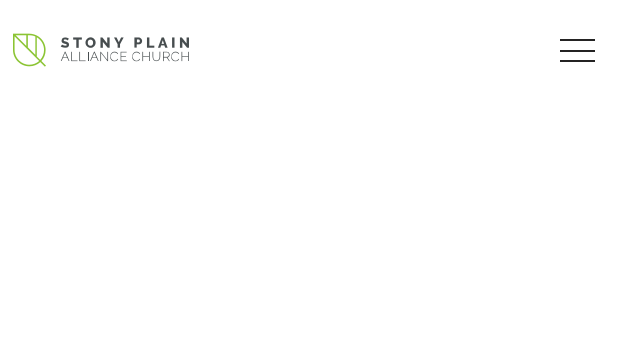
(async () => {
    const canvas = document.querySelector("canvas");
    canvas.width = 626;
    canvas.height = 357;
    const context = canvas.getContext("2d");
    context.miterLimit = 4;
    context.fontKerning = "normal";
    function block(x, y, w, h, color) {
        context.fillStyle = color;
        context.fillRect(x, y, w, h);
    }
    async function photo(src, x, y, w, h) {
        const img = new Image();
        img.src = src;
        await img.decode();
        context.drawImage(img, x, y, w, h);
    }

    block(0, 0, 626, 357, "rgb(255, 255, 255)");
    await photo("media/1.png", 13, 33, 176, 34);
    block(560, 39, 35, 2, "rgb(36, 35, 35)");
    block(560, 50, 35, 2, "rgb(36, 35, 35)");
    block(560, 60, 35, 2, "rgb(36, 35, 35)");
})();
